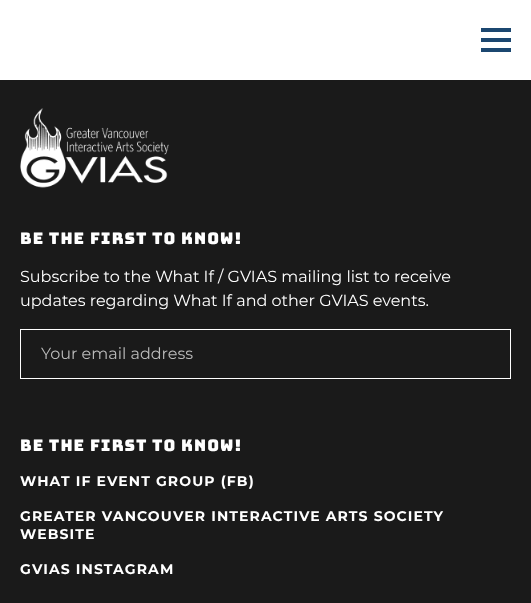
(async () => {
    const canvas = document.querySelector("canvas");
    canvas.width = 531;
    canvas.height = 603;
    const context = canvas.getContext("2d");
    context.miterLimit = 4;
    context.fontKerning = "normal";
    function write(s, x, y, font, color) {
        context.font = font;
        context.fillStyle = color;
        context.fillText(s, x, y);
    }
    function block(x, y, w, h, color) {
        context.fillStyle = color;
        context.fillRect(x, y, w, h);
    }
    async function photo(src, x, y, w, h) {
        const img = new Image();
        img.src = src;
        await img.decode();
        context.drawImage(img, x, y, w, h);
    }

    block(0, 0, 531, 603, "rgb(26, 26, 26)");
    block(0, 0, 531, 80, "rgb(255, 255, 255)");
    block(481, 38, 30, 4, "rgb(27, 71, 112)");
    block(481, 28, 30, 4, "rgb(27, 71, 112)");
    block(481, 48, 30, 4, "rgb(27, 71, 112)");
    await photo("media/1.png", 20, 108, 149, 80);
    context.letterSpacing = "1.1px";
    write("Be the first to know!", 20, 244, "16px Bungee", "rgb(255, 255, 255)");
    context.letterSpacing = "0px";
    write("Subscribe to the What If / GVIAS mailing list to receive", 20, 282, "16px Montserrat", "rgb(255, 255, 255)");
    write("updates regarding What If and other GVIAS events.", 20, 306, "16px Montserrat", "rgb(255, 255, 255)");
    context.strokeStyle = "rgb(255, 255, 255)";
    context.strokeRect(20.5, 329.5, 490, 49);
    write("Your email address", 41, 359, "16px Montserrat", "rgb(186, 186, 186)");
    context.letterSpacing = "1.1px";
    write("Be the first to know!", 20, 451, "16px Bungee", "rgb(255, 255, 255)");
    write("WHAT IF EVENT GROUP (FB)", 20, 486, "bold 14px Montserrat", "rgb(255, 255, 255)");
    write("GREATER VANCOUVER INTERACTIVE ARTS SOCIETY", 20, 521, "bold 14px Montserrat", "rgb(255, 255, 255)");
    write("WEBSITE", 20, 539, "bold 14px Montserrat", "rgb(255, 255, 255)");
    write("GVIAS INSTAGRAM", 20, 574, "bold 14px Montserrat", "rgb(255, 255, 255)");
})();
